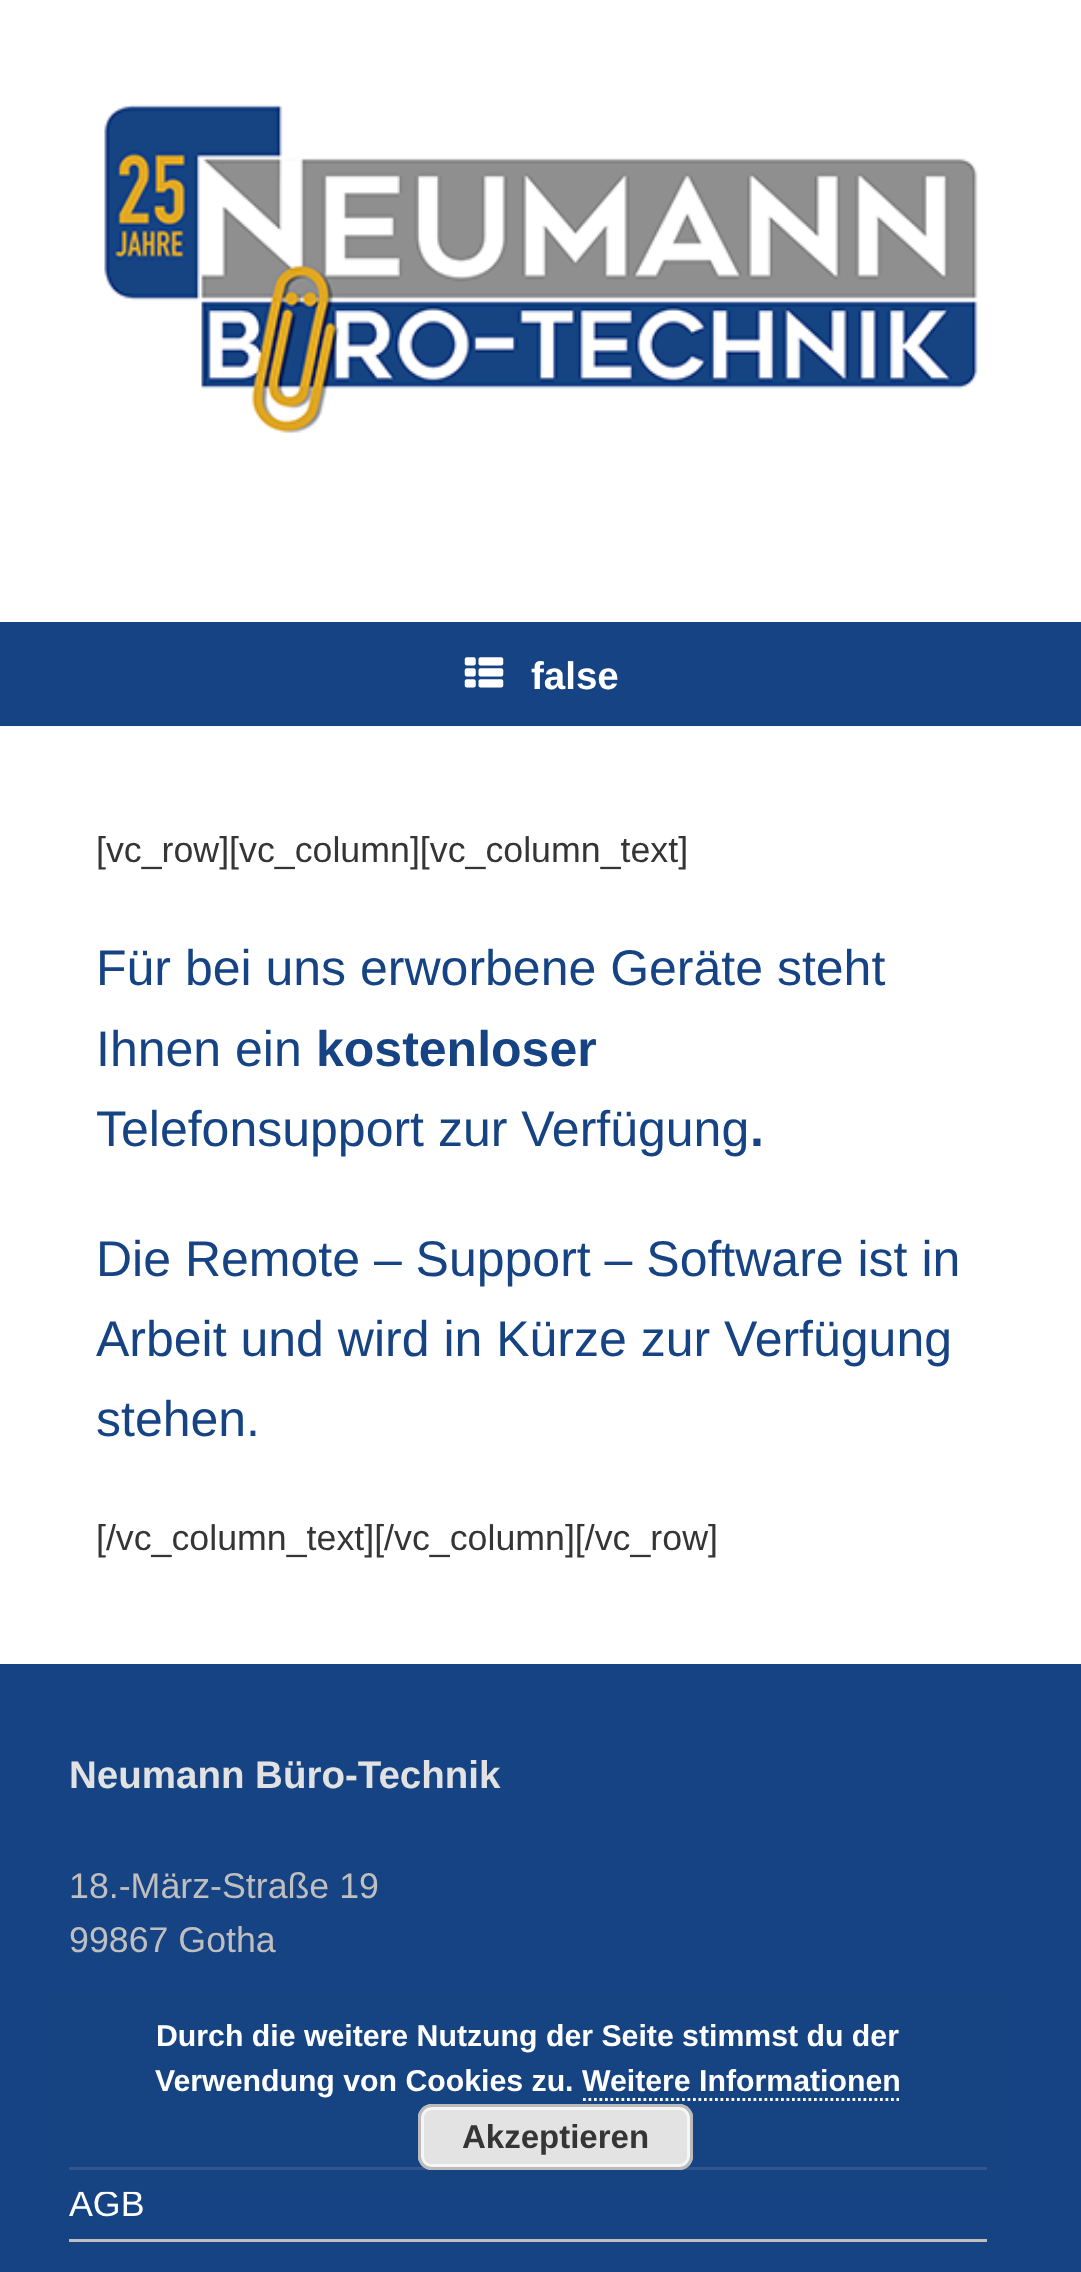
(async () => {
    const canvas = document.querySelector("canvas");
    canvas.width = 1081;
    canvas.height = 2272;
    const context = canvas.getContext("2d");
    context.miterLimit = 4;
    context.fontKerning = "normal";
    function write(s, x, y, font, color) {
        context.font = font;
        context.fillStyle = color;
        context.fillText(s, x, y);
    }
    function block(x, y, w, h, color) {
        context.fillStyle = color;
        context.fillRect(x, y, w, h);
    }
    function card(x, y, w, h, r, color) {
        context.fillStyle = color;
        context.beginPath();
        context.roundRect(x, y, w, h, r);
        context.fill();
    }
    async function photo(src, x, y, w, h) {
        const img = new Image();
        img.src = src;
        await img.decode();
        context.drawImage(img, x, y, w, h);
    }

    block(0, 0, 1081, 2272, "rgb(255, 255, 255)");
    await photo("media/1.png", 104, 104, 874, 331);
    block(0, 622, 1081, 104, "rgb(22, 67, 131)");
    await photo("media/2.png", 464, 657, 40, 31);
    write("false", 531, 689, "bold 38.5px Liberation Sans", "rgb(255, 255, 255)");
    write("[vc_row][vc_column][vc_column_text]", 96, 862, "35.75px Liberation Sans", "rgb(53, 53, 53)");
    write("Für bei uns erworbene Geräte steht", 96, 985, "50px Liberation Sans", "rgb(22, 67, 131)");
    write("Ihnen ein", 96, 1066, "50px Liberation Sans", "rgb(22, 67, 131)");
    write("kostenloser", 316, 1066, "bold 50px Liberation Sans", "rgb(22, 67, 131)");
    write("Telefonsupport zur Verfügung", 96, 1146, "50px Liberation Sans", "rgb(22, 67, 131)");
    write(".", 750, 1146, "bold 50px Liberation Sans", "rgb(22, 67, 131)");
    write("Die Remote – Support – Software ist in", 96, 1276, "50px Liberation Sans", "rgb(22, 67, 131)");
    write("Arbeit und wird in Kürze zur Verfügung", 96, 1356, "50px Liberation Sans", "rgb(22, 67, 131)");
    write("stehen.", 96, 1436, "50px Liberation Sans", "rgb(22, 67, 131)");
    write("[/vc_column_text][/vc_column][/vc_row]", 96, 1550, "35.75px Liberation Sans", "rgb(53, 53, 53)");
    block(0, 1664, 1081, 608, "rgb(22, 67, 131)");
    write("Neumann Büro-Technik", 69, 1788, "bold 38.5px Liberation Sans", "rgb(226, 226, 226)");
    write("18.-März-Straße 19", 69, 1898, "35.75px Liberation Sans", "rgb(191, 191, 191)");
    write("99867 Gotha", 69, 1952, "35.75px Liberation Sans", "rgb(191, 191, 191)");
    block(69, 2167, 918, 3, "rgb(191, 191, 191)");
    block(69, 2239, 918, 3, "rgb(191, 191, 191)");
    write("AGB", 69, 2216, "35.75px Liberation Sans", "rgb(255, 255, 255)");
    card(55, 1991, 946, 201, 14, "rgba(22, 67, 131, 0.85)");
    write("Durch die weitere Nutzung der Seite stimmst du der", 156, 2046, "bold 30.25px Liberation Sans", "rgb(255, 255, 255)");
    write("Verwendung von Cookies zu. Weitere Informationen", 155, 2091, "bold 30.25px Liberation Sans", "rgb(255, 255, 255)");
    context.beginPath();
    context.moveTo(583, 2099.5);
    context.lineTo(899, 2099.5);
    context.strokeStyle = "rgb(255, 255, 255)";
    context.lineWidth = 2.8;
    context.setLineDash([2.75, 2.75]);
    context.stroke();
    card(418, 2104, 275, 66, 14, "rgb(227, 227, 227)");
    context.beginPath();
    context.roundRect(422.5, 2108.5, 266, 57, 9.5);
    context.strokeStyle = "rgb(246, 246, 246)";
    context.lineWidth = 3;
    context.setLineDash([]);
    context.stroke();
    context.beginPath();
    context.roundRect(419.5, 2105.5, 272, 63, 12.5);
    context.strokeStyle = "rgb(187, 187, 187)";
    context.stroke();
    write("Akzeptieren", 462, 2148, "bold 33px Liberation Sans", "rgb(53, 53, 53)");
})();
